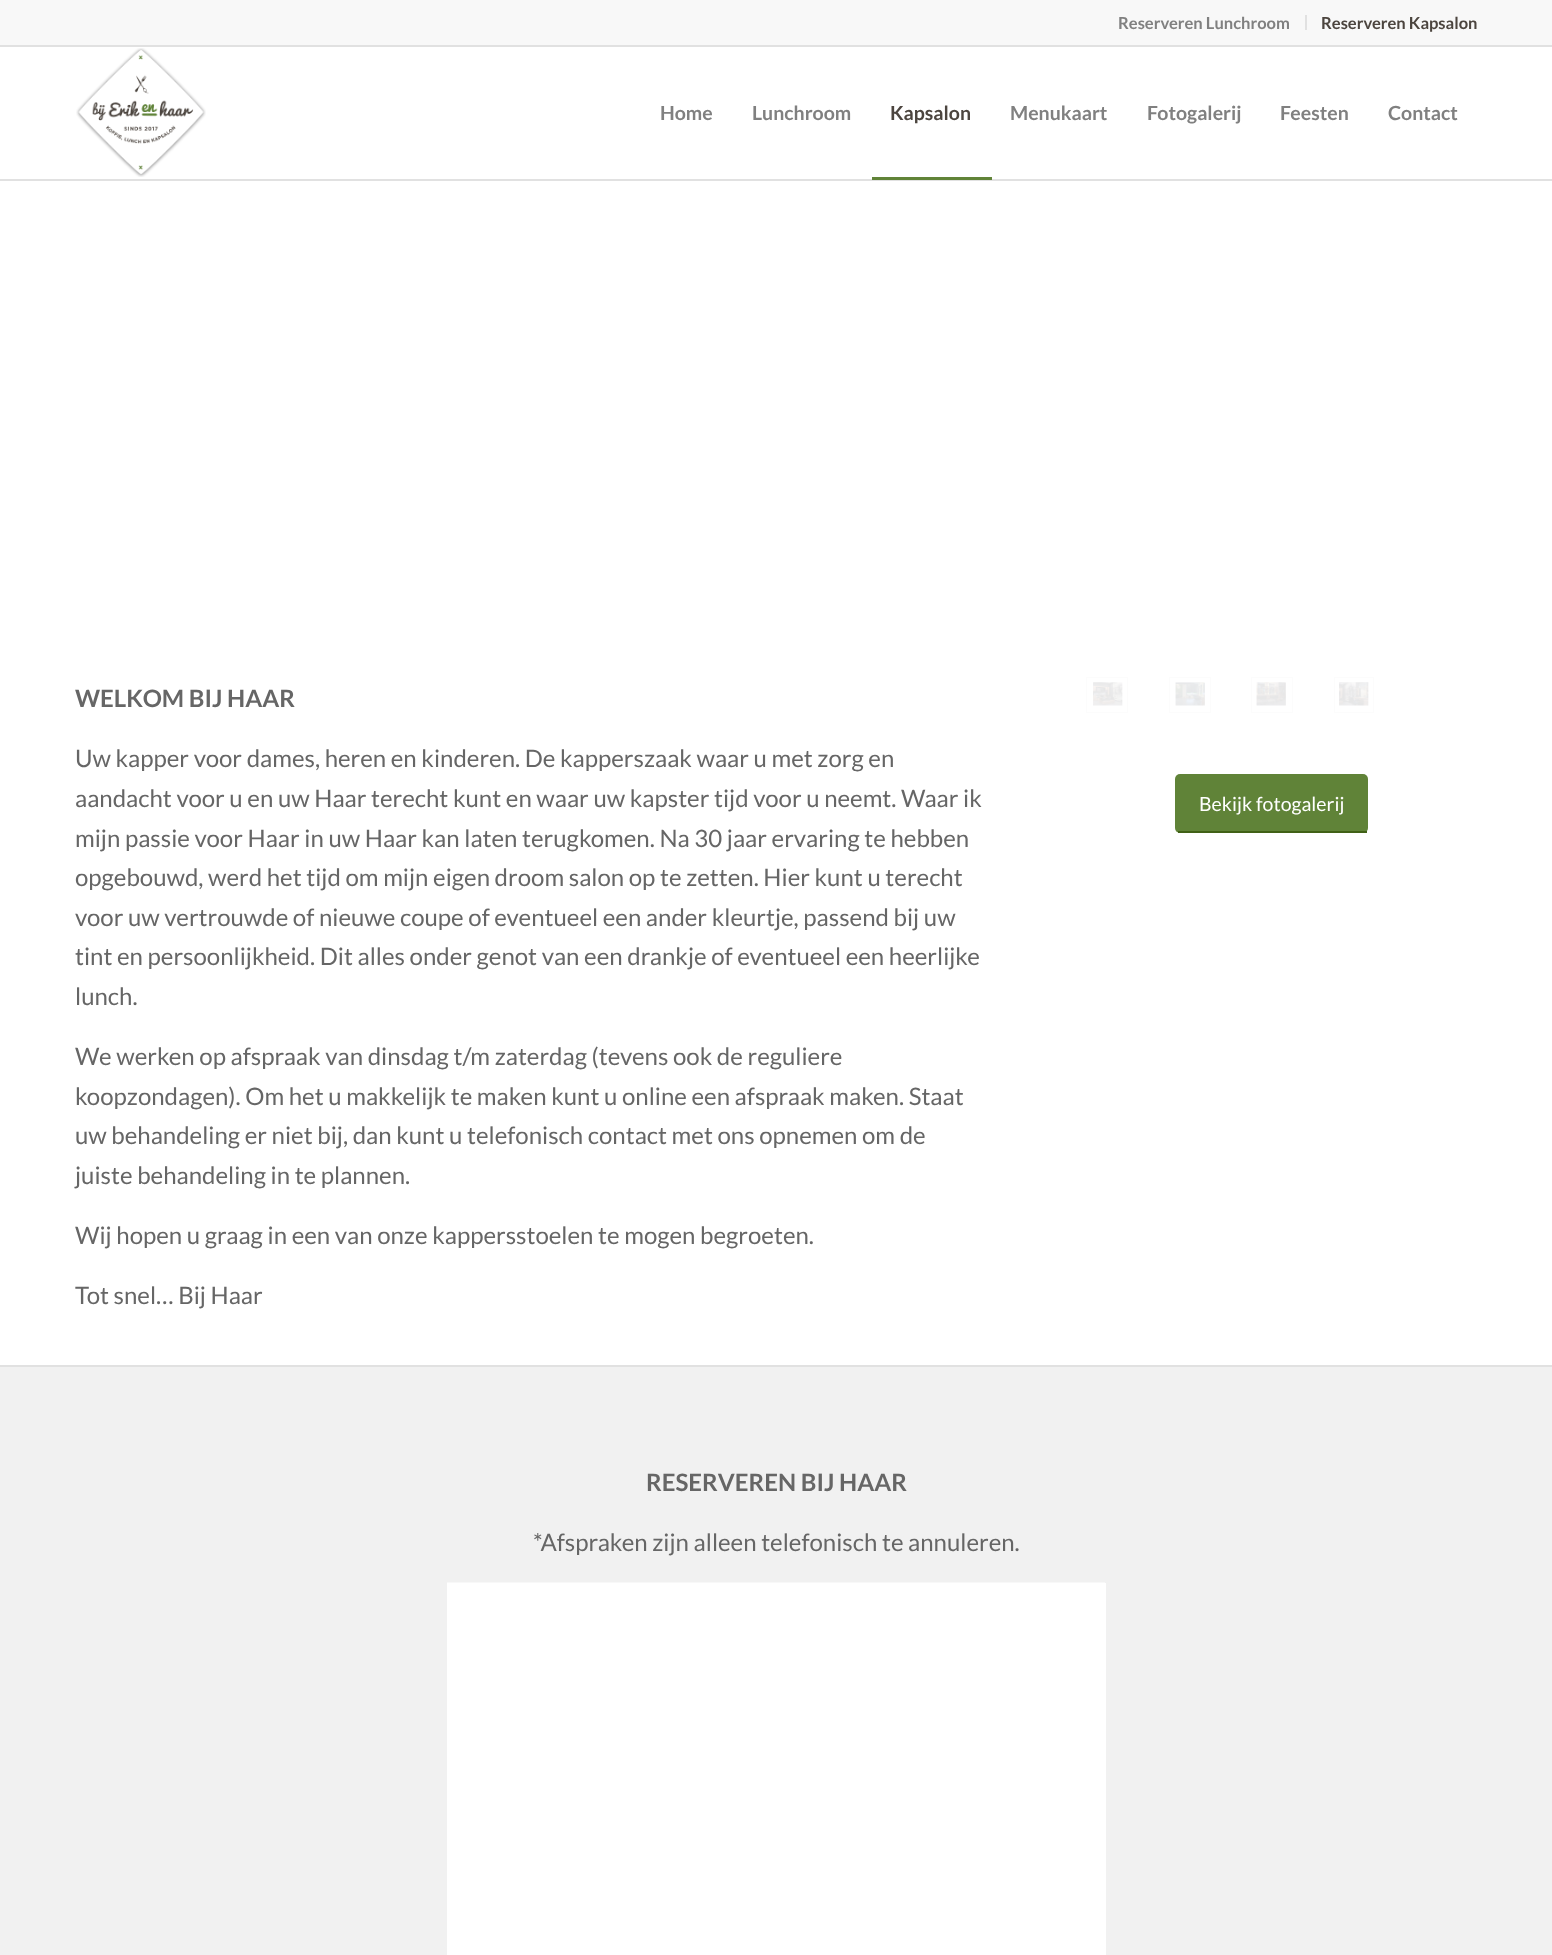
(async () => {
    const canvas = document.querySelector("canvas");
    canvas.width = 1552;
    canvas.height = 1955;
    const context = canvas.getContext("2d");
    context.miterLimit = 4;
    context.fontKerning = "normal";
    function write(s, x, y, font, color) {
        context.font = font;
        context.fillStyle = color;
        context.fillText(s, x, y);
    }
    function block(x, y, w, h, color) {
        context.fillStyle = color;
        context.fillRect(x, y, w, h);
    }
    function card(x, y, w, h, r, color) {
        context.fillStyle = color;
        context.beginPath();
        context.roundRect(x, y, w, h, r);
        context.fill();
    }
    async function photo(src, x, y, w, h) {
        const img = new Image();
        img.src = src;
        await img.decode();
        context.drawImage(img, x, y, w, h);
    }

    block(0, 0, 1552, 1955, "rgb(255, 255, 255)");
    block(0, 0, 1552, 45, "rgb(248, 248, 248)");
    block(0, 45, 1552, 2, "rgb(225, 225, 225)");
    block(1305, 15, 2, 15, "rgb(225, 225, 225)");
    write("Reserveren Lunchroom", 1118, 29, "bold 16.5px Lato", "rgb(128, 128, 128)");
    write("Reserveren Kapsalon", 1321, 29, "bold 16.5px Lato", "rgb(76, 69, 63)");
    block(0, 179, 1552, 2, "rgb(225, 225, 225)");
    await photo("media/1.png", 76, 48, 130, 129);
    write("Home", 660, 120, "bold 19.5px Lato", "rgb(128, 128, 128)");
    write("Lunchroom", 752, 120, "bold 19.5px Lato", "rgb(128, 128, 128)");
    write("Kapsalon", 890, 120, "bold 19.5px Lato", "rgb(76, 69, 63)");
    block(872, 177, 120, 3, "rgb(96, 131, 56)");
    write("Menukaart", 1010, 120, "bold 19.5px Lato", "rgb(128, 128, 128)");
    write("Fotogalerij", 1147, 120, "bold 19.5px Lato", "rgb(128, 128, 128)");
    write("Feesten", 1280, 120, "bold 19.5px Lato", "rgb(128, 128, 128)");
    write("Contact", 1388, 120, "bold 19.5px Lato", "rgb(128, 128, 128)");
    write("WELKOM BIJ HAAR", 75, 707, "bold 24px Lato", "rgb(102, 102, 102)");
    write("Uw kapper voor dames, heren en kinderen. De kapperszaak waar u met zorg en", 75, 767, "24px Lato", "rgb(102, 102, 102)");
    write("aandacht voor u en uw Haar terecht kunt en waar uw kapster tijd voor u neemt. Waar ik", 75, 807, "24px Lato", "rgb(102, 102, 102)");
    write("mijn passie voor Haar in uw Haar kan laten terugkomen. Na 30 jaar ervaring te hebben", 75, 847, "24px Lato", "rgb(102, 102, 102)");
    write("opgebouwd, werd het tijd om mijn eigen droom salon op te zetten. Hier kunt u terecht", 75, 886, "24px Lato", "rgb(102, 102, 102)");
    write("voor uw vertrouwde of nieuwe coupe of eventueel een ander kleurtje, passend bij uw", 75, 926, "24px Lato", "rgb(102, 102, 102)");
    write("tint en persoonlijkheid. Dit alles onder genot van een drankje of eventueel een heerlijke", 75, 965, "24px Lato", "rgb(102, 102, 102)");
    write("lunch.", 75, 1005, "24px Lato", "rgb(102, 102, 102)");
    write("We werken op afspraak van dinsdag t/m zaterdag (tevens ook de reguliere", 75, 1065, "24px Lato", "rgb(102, 102, 102)");
    write("koopzondagen). Om het u makkelijk te maken kunt u online een afspraak maken. Staat", 75, 1105, "24px Lato", "rgb(102, 102, 102)");
    write("uw behandeling er niet bij, dan kunt u telefonisch contact met ons opnemen om de", 75, 1144, "24px Lato", "rgb(102, 102, 102)");
    write("juiste behandeling in te plannen.", 75, 1184, "24px Lato", "rgb(102, 102, 102)");
    write("Wij hopen u graag in een van onze kappersstoelen te mogen begroeten.", 75, 1244, "24px Lato", "rgb(102, 102, 102)");
    write("Tot snel… Bij Haar", 75, 1304, "24px Lato", "rgb(102, 102, 102)");
    context.strokeStyle = "rgb(252, 252, 252)";
    context.lineWidth = 0.8;
    context.strokeRect(1086.4, 677.4, 41.2, 35.2);
    await photo("media/2.png", 1093, 682, 30, 24);
    context.strokeRect(1169.4, 677.4, 41.2, 35.2);
    await photo("media/3.png", 1175, 682, 30, 24);
    context.strokeRect(1251.4, 677.4, 41.2, 35.2);
    await photo("media/4.png", 1256, 682, 30, 24);
    context.strokeRect(1334.4, 677.4, 39.2, 35.2);
    await photo("media/5.png", 1339, 682, 30, 24);
    card(1175, 774, 193, 59, 5, "rgb(96, 131, 56)");
    block(1178, 831, 189, 2, "rgb(64, 97, 22)");
    write("Bekijk fotogalerij", 1199, 811, "19.5px Lato", "rgb(255, 255, 255)");
    block(0, 1367, 1552, 588, "rgb(241, 241, 241)");
    block(0, 1365, 1552, 2, "rgb(225, 225, 225)");
    write("RESERVEREN BIJ HAAR", 646, 1491, "bold 24px Lato", "rgb(102, 102, 102)");
    write("*Afspraken zijn alleen telefonisch te annuleren.", 533, 1551, "24px Lato", "rgb(102, 102, 102)");
    block(447, 1583, 659, 372, "rgb(255, 255, 255)");
    block(447, 1582, 658, 1, "rgb(248, 248, 248)");
})();
